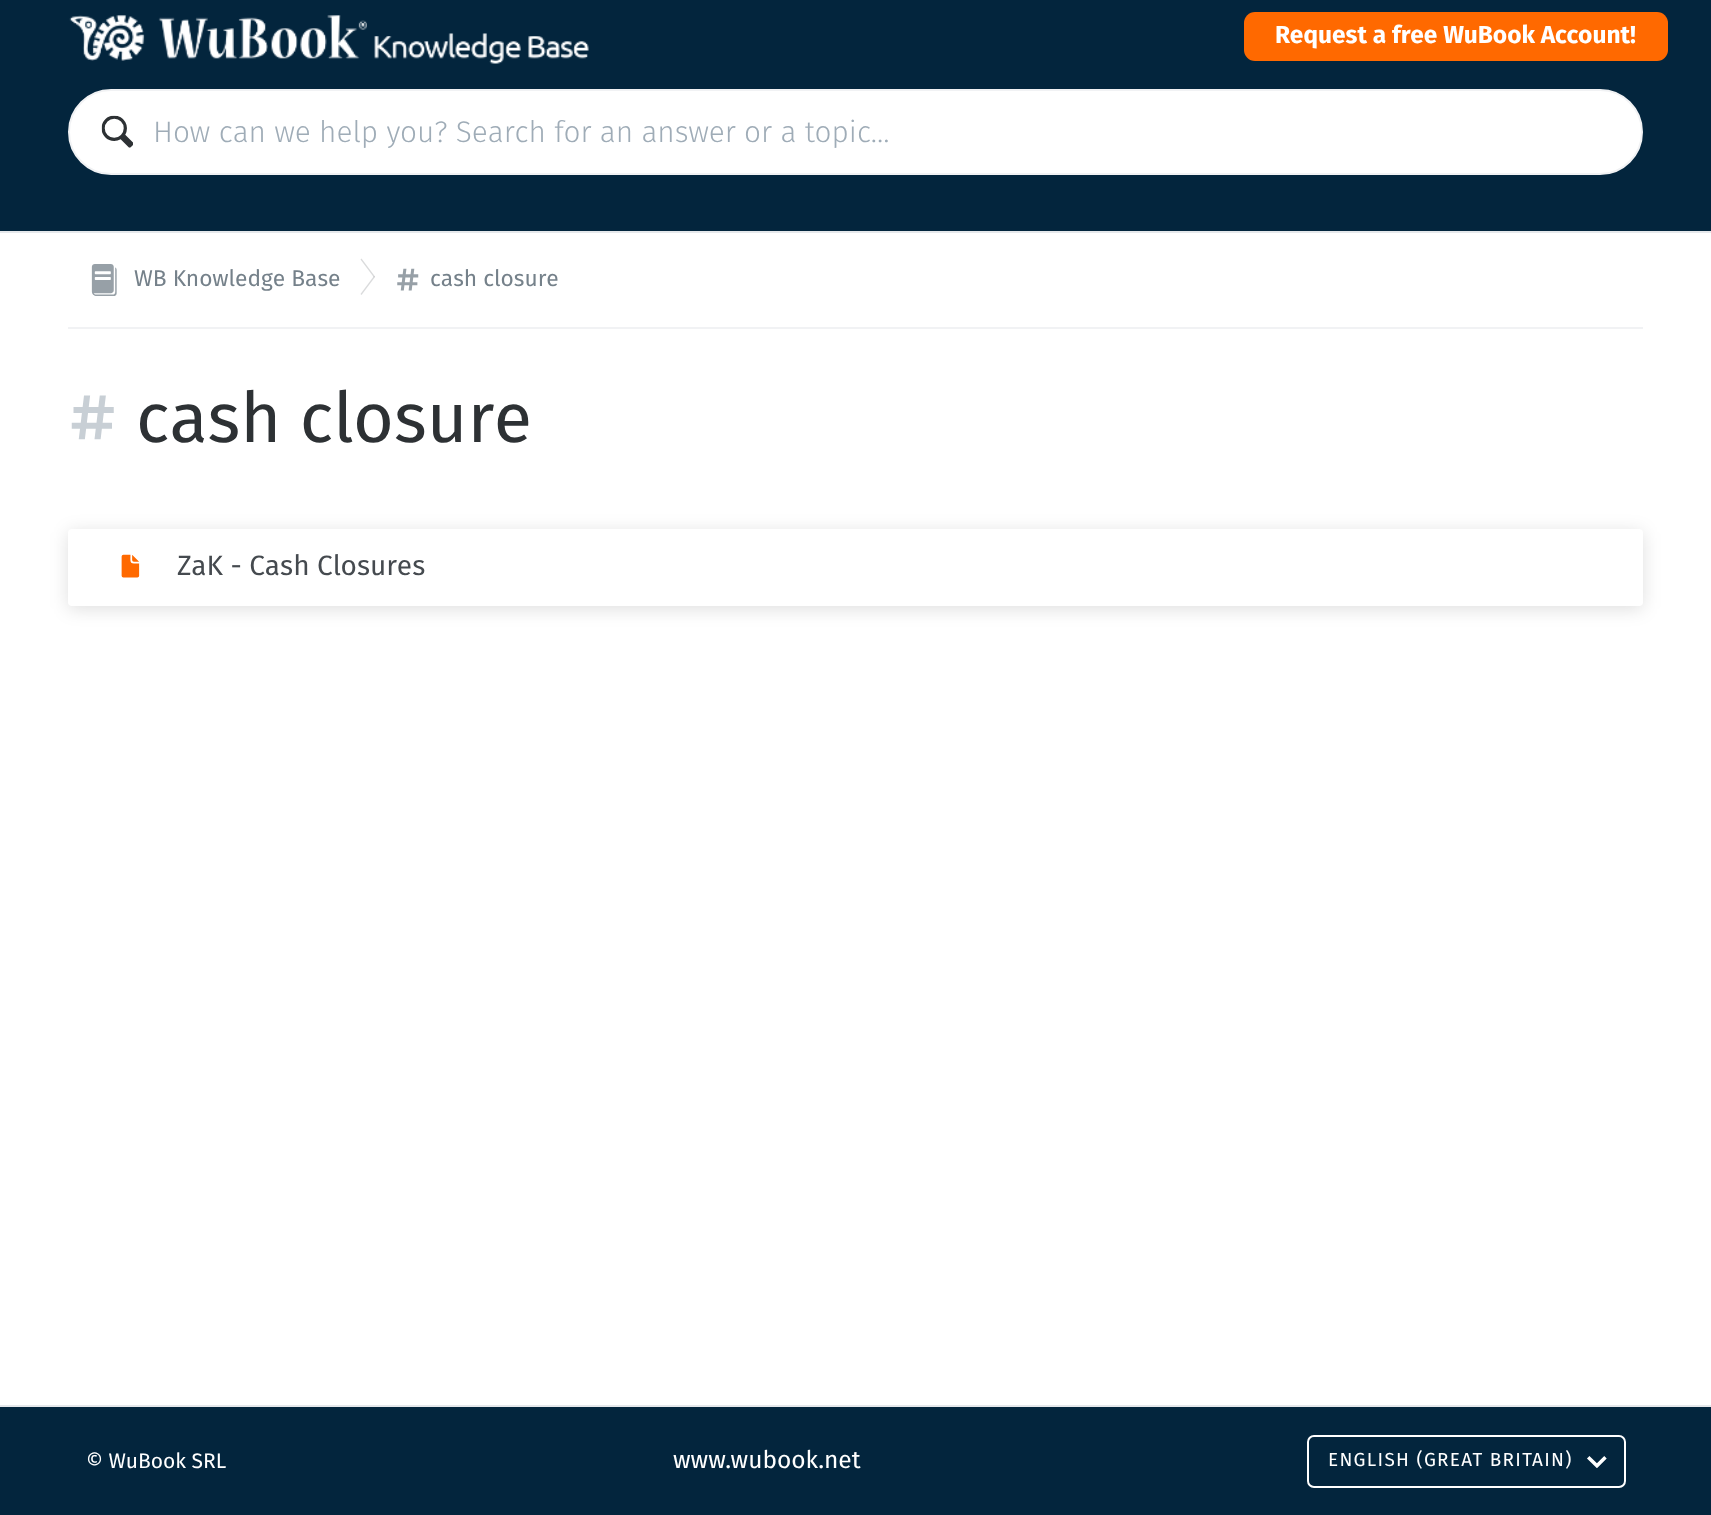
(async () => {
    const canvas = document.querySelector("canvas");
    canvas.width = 1711;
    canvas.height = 1515;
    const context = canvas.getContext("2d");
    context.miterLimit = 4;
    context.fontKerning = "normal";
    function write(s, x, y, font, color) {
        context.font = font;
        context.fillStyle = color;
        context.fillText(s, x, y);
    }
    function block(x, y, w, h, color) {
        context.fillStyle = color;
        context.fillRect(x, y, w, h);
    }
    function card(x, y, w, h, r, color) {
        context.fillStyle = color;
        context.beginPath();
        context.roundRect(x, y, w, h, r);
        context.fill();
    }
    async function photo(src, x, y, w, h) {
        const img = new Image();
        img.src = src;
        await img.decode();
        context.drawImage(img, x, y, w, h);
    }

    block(0, 0, 1711, 1515, "rgb(255, 255, 255)");
    block(0, 0, 1711, 231, "rgb(3, 37, 61)");
    block(0, 231, 1711, 2, "rgb(229, 232, 235)");
    await photo("media/1.png", 69, 15, 520, 49);
    card(1244, 12, 424, 49, 11, "rgb(255, 105, 0)");
    write("Request a free WuBook Account!", 1275, 43, "bold 24.5px Fira Sans", "rgb(255, 255, 255)");
    context.beginPath();
    context.roundRect(69, 90, 1573, 84, 42);
    context.fill();
    context.strokeStyle = "rgb(241, 242, 244)";
    context.lineWidth = 2;
    context.stroke();
    await photo("media/2.png", 101, 115, 32, 33);
    write("How can we help you? Search for an answer or a topic…", 153, 142, "300 29.75px Fira Sans", "rgb(159, 172, 183)");
    block(68, 327, 1575, 2, "rgb(241, 242, 244)");
    await photo("media/3.png", 91, 264, 26, 32);
    write("WB Knowledge Base", 134, 286, "22.75px Fira Sans", "rgb(117, 129, 138)");
    context.fillStyle = "rgb(218, 219, 220)";
    context.beginPath();
    context.moveTo(360.5, 259.5);
    context.lineTo(361.5, 258.5);
    context.lineTo(375, 276.5);
    context.lineTo(374, 277.5);
    context.closePath();
    context.fill();
    context.fillStyle = "rgba(69, 74, 79, 0.2)";
    context.beginPath();
    context.moveTo(374, 276);
    context.lineTo(375, 277);
    context.lineTo(361.5, 295);
    context.lineTo(360.5, 294);
    context.closePath();
    context.fill();
    await photo("media/4.png", 397, 268, 22, 23);
    write("cash closure", 430, 286, "22.75px Fira Sans", "rgb(117, 129, 138)");
    await photo("media/5.png", 71, 395, 43, 45);
    write("cash closure", 136, 442, "70px Fira Sans", "rgb(45, 49, 52)");
    context.fillStyle = "rgba(0, 0, 0, 0.13)";
    context.filter = "blur(9px)";
    context.beginPath();
    context.roundRect(68, 532, 1575, 77, 4);
    context.fill();
    context.filter = "none";
    card(68, 529, 1575, 77, 4, "rgb(255, 255, 255)");
    await photo("media/6.png", 121, 554, 19, 24);
    write("ZaK - Cash Closures", 177, 575, "28px Fira Sans", "rgb(69, 74, 79)");
    block(0, 1407, 1711, 108, "rgb(3, 37, 61)");
    block(0, 1405, 1711, 2, "rgb(229, 232, 235)");
    write("© WuBook SRL", 86, 1468, "21px Fira Sans", "rgb(255, 255, 255)");
    write("www.wubook.net", 673, 1468, "24.5px Fira Sans", "rgb(255, 255, 255)");
    context.beginPath();
    context.roundRect(1308, 1436, 317, 51, 6);
    context.strokeStyle = "rgb(255, 255, 255)";
    context.stroke();
    context.letterSpacing = "1.3px";
    write("ENGLISH (GREAT BRITAIN)", 1328, 1466, "18.9px Fira Sans", "rgb(255, 255, 255)");
    await photo("media/7.png", 1587, 1456, 20, 12);
})();
